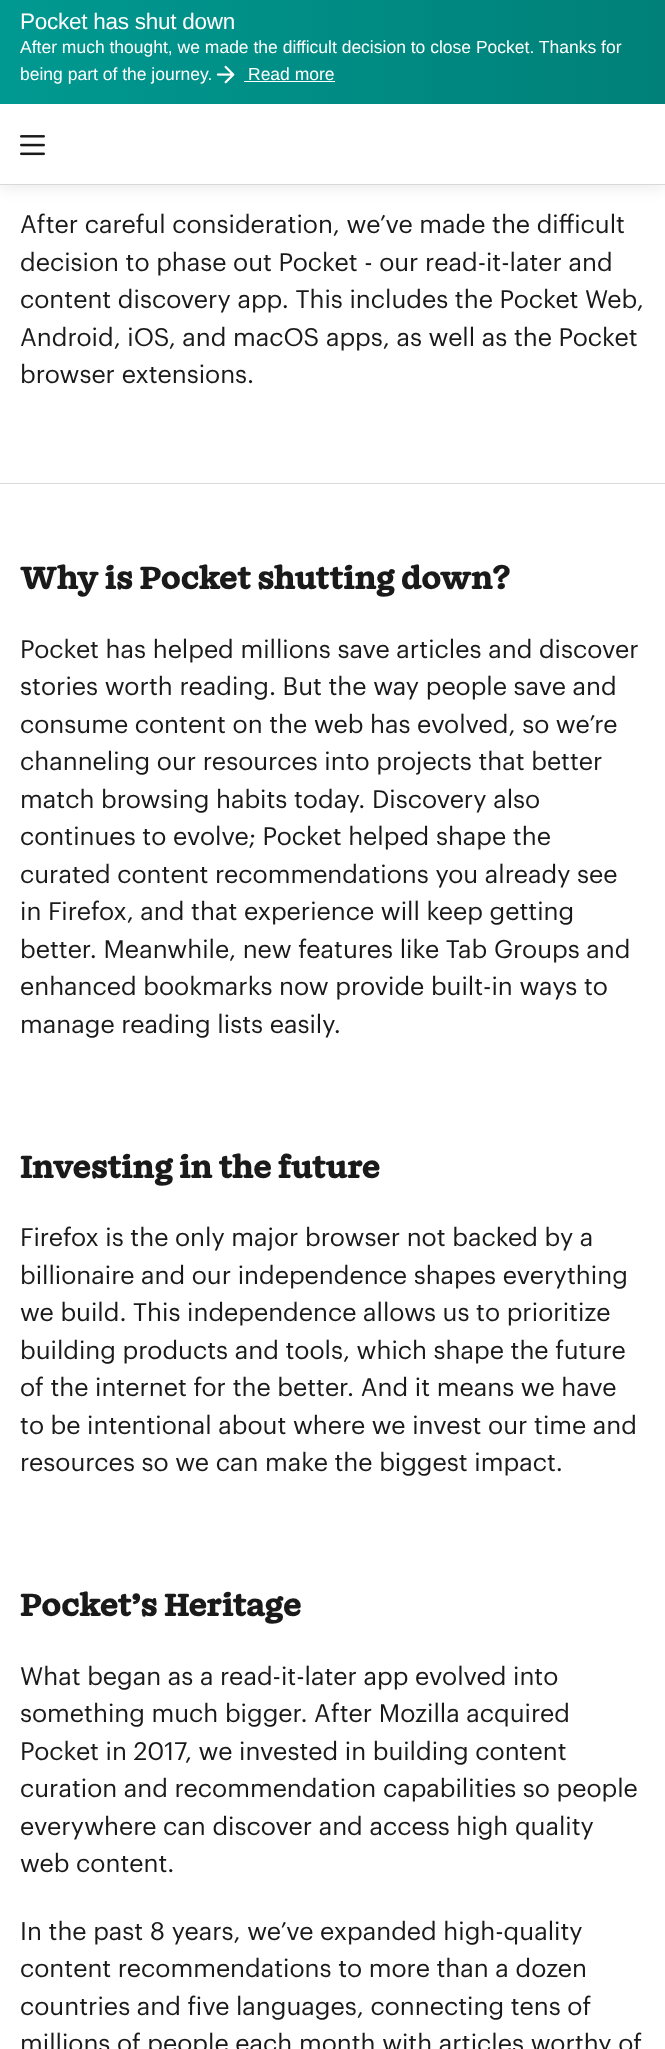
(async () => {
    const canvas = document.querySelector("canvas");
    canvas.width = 665;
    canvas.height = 2049;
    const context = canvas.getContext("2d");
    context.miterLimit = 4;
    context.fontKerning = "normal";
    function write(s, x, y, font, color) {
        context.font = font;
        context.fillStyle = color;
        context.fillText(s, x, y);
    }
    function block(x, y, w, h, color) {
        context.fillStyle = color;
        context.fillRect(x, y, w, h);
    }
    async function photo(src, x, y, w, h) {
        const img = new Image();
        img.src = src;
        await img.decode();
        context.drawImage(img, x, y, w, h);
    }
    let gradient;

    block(0, 0, 665, 2049, "rgb(255, 255, 255)");
    context.fillStyle = "rgba(0, 0, 0, 0.08)";
    context.filter = "blur(7.5px)";
    context.beginPath();
    context.rect(0, 3, 665, 185);
    context.fill();
    context.filter = "none";
    block(0, 104, 665, 80, "rgb(255, 255, 255)");
    block(0, 184, 665, 1, "rgb(217, 217, 217)");
    gradient = context.createLinearGradient(665, 52, 0, 52);
    gradient.addColorStop(0, "rgb(0, 128, 120)");
    gradient.addColorStop(1, "rgb(0, 153, 145)");
    context.fillStyle = gradient;
    context.fillRect(0, 0, 665, 104);
    context.letterSpacing = "-0.25px";
    write("Pocket has shut down", 20, 29, "22.5px Liberation Sans", "rgb(255, 255, 255)");
    context.letterSpacing = "0px";
    write("After much thought, we made the difficult decision to close Pocket. Thanks for", 20, 53, "17.5px Liberation Sans", "rgb(255, 255, 255)");
    write("being part of the journey.", 20, 80, "17.5px Liberation Sans", "rgb(255, 255, 255)");
    await photo("media/1.png", 216, 65, 19, 19);
    write("Read more", 248, 80, "17.5px Liberation Sans", "rgb(255, 255, 255)");
    block(244, 81, 91, 1, "rgb(255, 255, 255)");
    await photo("media/2.png", 20, 135, 25, 21);
    block(0, 483, 665, 1, "rgb(217, 217, 217)");
    write("After careful consideration, we’ve made the difficult", 20, 233, "25px Graphik", "rgb(26, 26, 26)");
    write("decision to phase out Pocket - our read-it-later and", 20, 271, "25px Graphik", "rgb(26, 26, 26)");
    write("content discovery app. This includes the Pocket Web,", 20, 308, "25px Graphik", "rgb(26, 26, 26)");
    write("Android, iOS, and macOS apps, as well as the Pocket", 20, 346, "25px Graphik", "rgb(26, 26, 26)");
    write("browser extensions.", 20, 383, "25px Graphik", "rgb(26, 26, 26)");
    write("Why is Pocket shutting down?", 20, 589, "bold 30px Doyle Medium", "rgb(26, 26, 26)");
    write("Pocket has helped millions save articles and discover", 20, 658, "25px Graphik", "rgb(26, 26, 26)");
    write("stories worth reading. But the way people save and", 20, 695, "25px Graphik", "rgb(26, 26, 26)");
    write("consume content on the web has evolved, so we’re", 20, 733, "25px Graphik", "rgb(26, 26, 26)");
    write("channeling our resources into projects that better", 20, 770, "25px Graphik", "rgb(26, 26, 26)");
    write("match browsing habits today. Discovery also", 20, 808, "25px Graphik", "rgb(26, 26, 26)");
    write("continues to evolve; Pocket helped shape the", 20, 845, "25px Graphik", "rgb(26, 26, 26)");
    write("curated content recommendations you already see", 20, 883, "25px Graphik", "rgb(26, 26, 26)");
    write("in Firefox, and that experience will keep getting", 20, 920, "25px Graphik", "rgb(26, 26, 26)");
    write("better. Meanwhile, new features like Tab Groups and", 20, 958, "25px Graphik", "rgb(26, 26, 26)");
    write("enhanced bookmarks now provide built-in ways to", 20, 995, "25px Graphik", "rgb(26, 26, 26)");
    write("manage reading lists easily.", 20, 1033, "25px Graphik", "rgb(26, 26, 26)");
    write("Investing in the future", 20, 1178, "bold 30px Doyle Medium", "rgb(26, 26, 26)");
    write("Firefox is the only major browser not backed by a", 20, 1246, "25px Graphik", "rgb(26, 26, 26)");
    write("billionaire and our independence shapes everything", 20, 1284, "25px Graphik", "rgb(26, 26, 26)");
    write("we build. This independence allows us to prioritize", 20, 1321, "25px Graphik", "rgb(26, 26, 26)");
    write("building products and tools, which shape the future", 20, 1359, "25px Graphik", "rgb(26, 26, 26)");
    write("of the internet for the better. And it means we have", 20, 1396, "25px Graphik", "rgb(26, 26, 26)");
    write("to be intentional about where we invest our time and", 20, 1434, "25px Graphik", "rgb(26, 26, 26)");
    write("resources so we can make the biggest impact.", 20, 1471, "25px Graphik", "rgb(26, 26, 26)");
    write("Pocket’s Heritage", 20, 1616, "bold 30px Doyle Medium", "rgb(26, 26, 26)");
    write("What began as a read-it-later app evolved into", 20, 1685, "25px Graphik", "rgb(26, 26, 26)");
    write("something much bigger. After Mozilla acquired", 20, 1722, "25px Graphik", "rgb(26, 26, 26)");
    write("Pocket in 2017, we invested in building content", 20, 1760, "25px Graphik", "rgb(26, 26, 26)");
    write("curation and recommendation capabilities so people", 20, 1797, "25px Graphik", "rgb(26, 26, 26)");
    write("everywhere can discover and access high quality", 20, 1835, "25px Graphik", "rgb(26, 26, 26)");
    write("web content.", 20, 1872, "25px Graphik", "rgb(26, 26, 26)");
    write("In the past 8 years, we’ve expanded high-quality", 20, 1940, "25px Graphik", "rgb(26, 26, 26)");
    write("content recommendations to more than a dozen", 20, 1977, "25px Graphik", "rgb(26, 26, 26)");
    write("countries and five languages, connecting tens of", 20, 2015, "25px Graphik", "rgb(26, 26, 26)");
    write("millions of people each month with articles worthy of", 20, 2052, "25px Graphik", "rgb(26, 26, 26)");
})();
